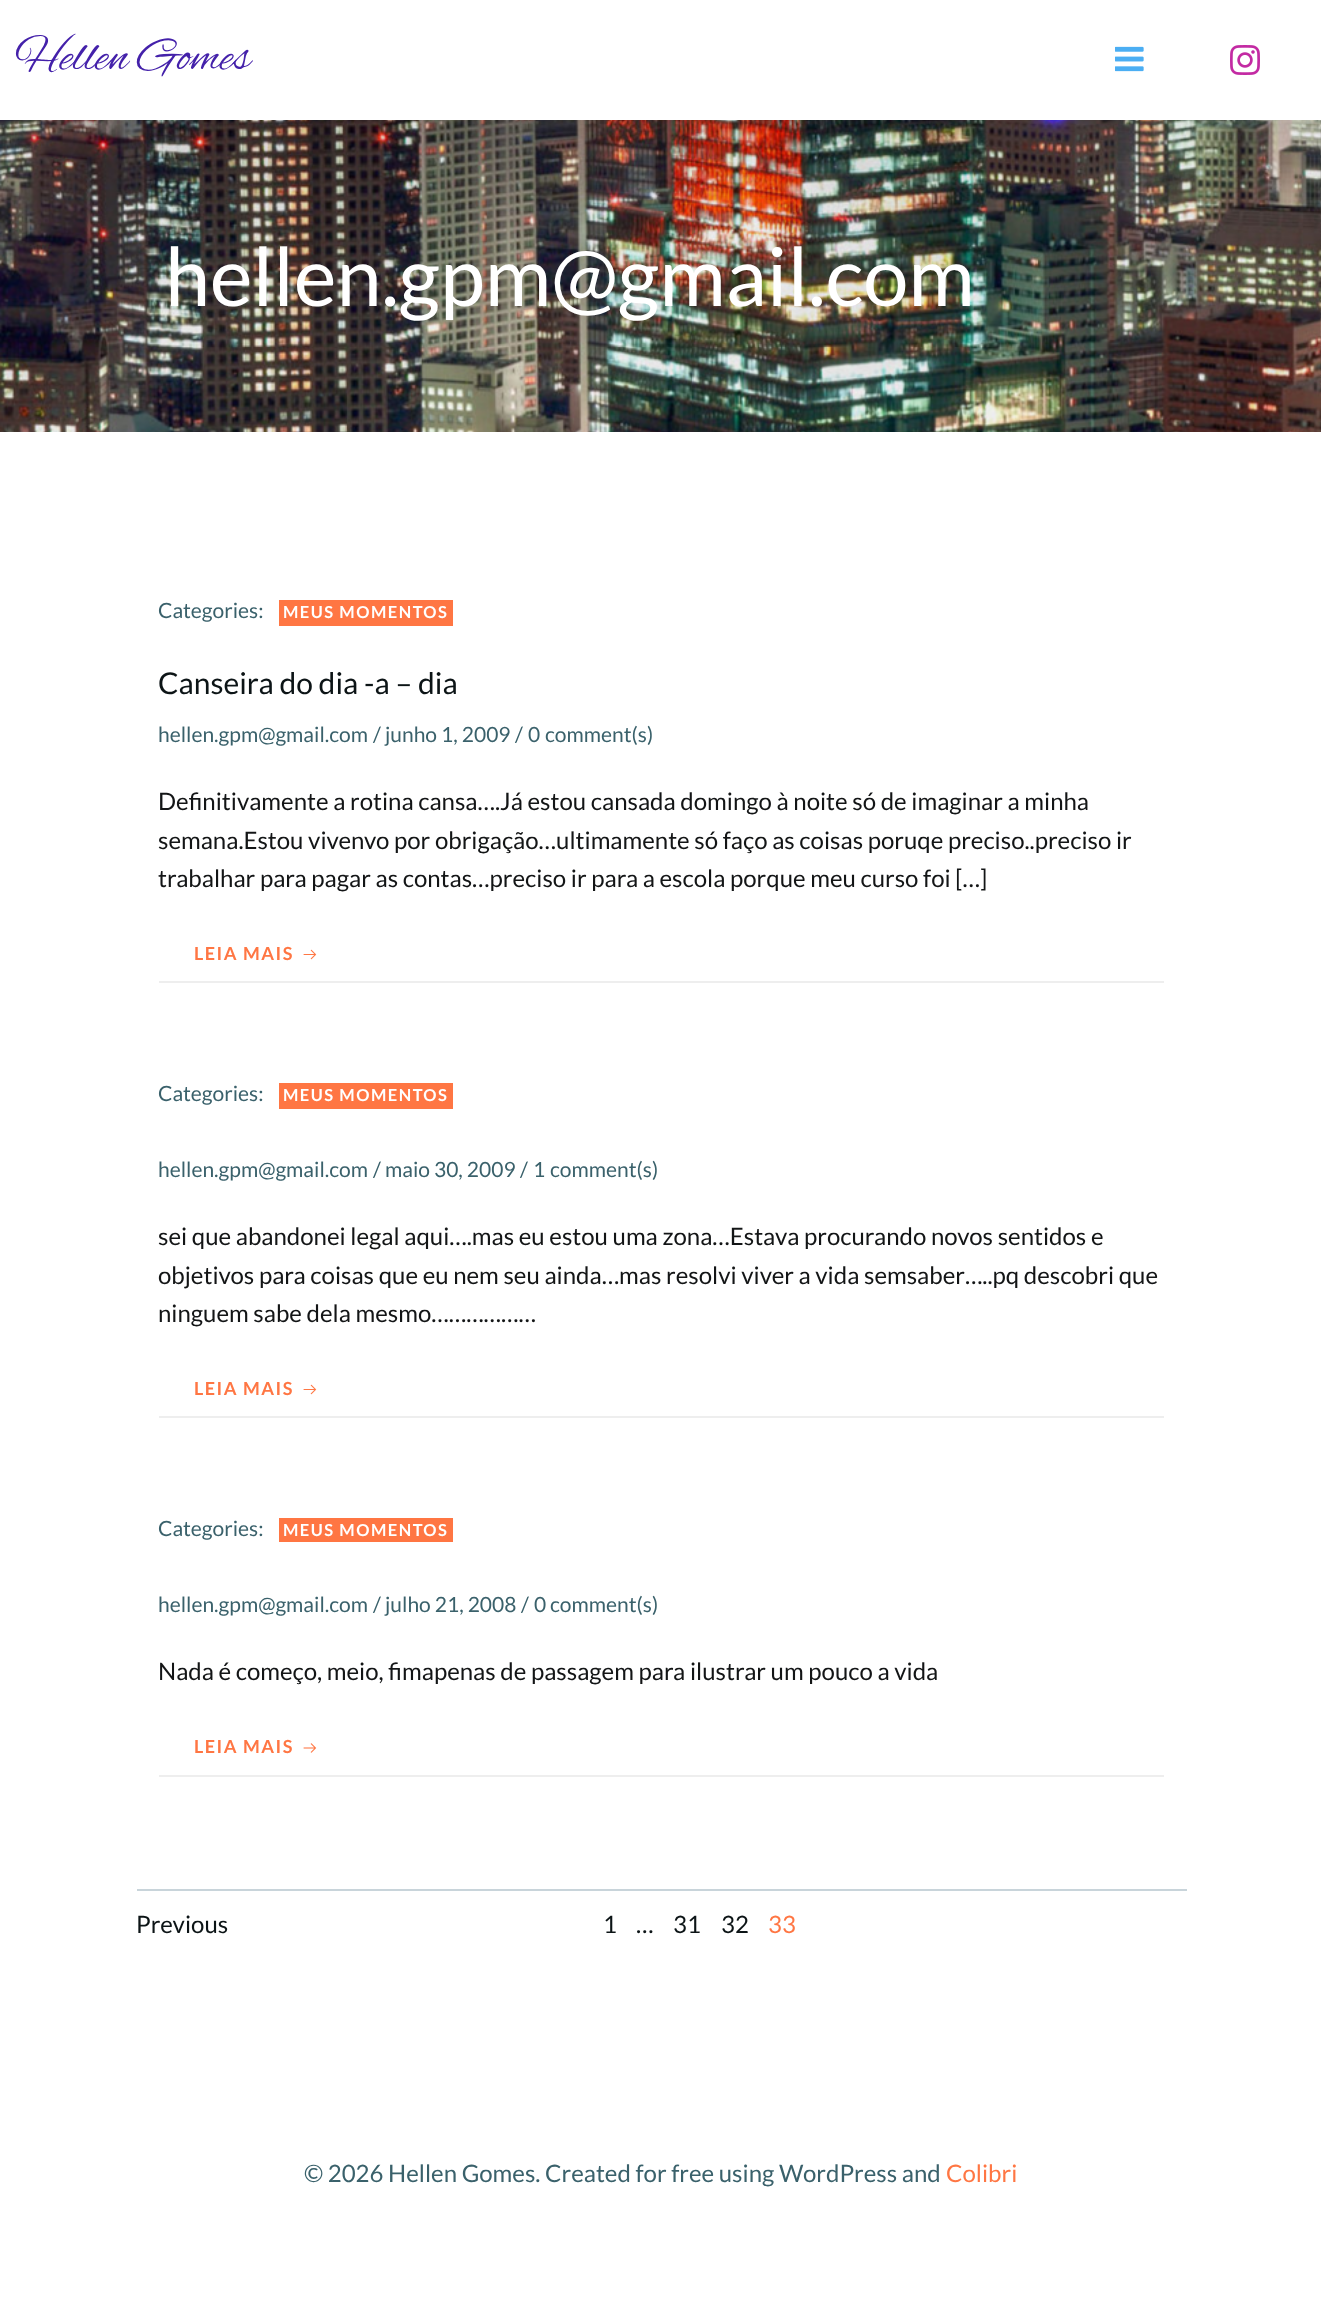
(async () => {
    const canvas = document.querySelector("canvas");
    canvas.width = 1321;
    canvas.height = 2322;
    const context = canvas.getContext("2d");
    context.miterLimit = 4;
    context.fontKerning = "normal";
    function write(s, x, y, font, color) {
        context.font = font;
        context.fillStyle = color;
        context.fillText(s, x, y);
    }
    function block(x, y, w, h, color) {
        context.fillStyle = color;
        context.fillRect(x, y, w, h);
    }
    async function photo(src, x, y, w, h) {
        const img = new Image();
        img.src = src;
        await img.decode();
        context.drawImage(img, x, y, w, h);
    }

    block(0, 0, 1321, 2322, "rgb(255, 255, 255)");
    write("Hellen Gomes", 15, 69, "48px Alex Brush", "rgb(68, 33, 170)");
    await photo("media/1.png", 1115, 46, 29, 26);
    await photo("media/2.png", 1230, 45, 30, 30);
    await photo("media/3.png", 1320, 120, 1, 312);
    await photo("media/4.png", 0, 120, 1321, 312);
    write("hellen.gpm@gmail.com", 165, 306, "81px Lato", "rgb(255, 255, 255)");
    block(159, 981, 1005, 2, "rgb(238, 238, 238)");
    write("Categories:", 158, 618, "21px Lato", "rgb(58, 97, 107)");
    block(279, 600, 174, 26, "rgb(255, 118, 67)");
    context.letterSpacing = "1.5px";
    write("MEUS MOMENTOS", 283, 618, "bold 16.5px Lato", "rgb(255, 255, 255)");
    context.letterSpacing = "0px";
    write("Canseira do dia -a – dia", 158, 694, "30px Lato", "rgb(12, 20, 22)");
    write("hellen.gpm@gmail.com", 158, 742, "21px Lato", "rgb(58, 97, 107)");
    write("/", 373, 742, "21px Lato", "rgb(58, 97, 107)");
    write("junho 1, 2009", 385, 742, "21px Lato", "rgb(58, 97, 107)");
    write("/", 515, 742, "21px Lato", "rgb(58, 97, 107)");
    write("0", 528, 742, "21px Lato", "rgb(58, 97, 107)");
    write("comment(s)", 545, 742, "21px Lato", "rgb(58, 97, 107)");
    write("Definitivamente a rotina cansa….Já estou cansada domingo à noite só de imaginar a minha", 158, 810, "24px Lato", "rgb(19, 21, 22)");
    write("semana.Estou vivenvo por obrigação…ultimamente só faço as coisas poruqe preciso..preciso ir", 158, 849, "24px Lato", "rgb(19, 21, 22)");
    write("trabalhar para pagar as contas…preciso ir para a escola porque meu curso foi […]", 158, 887, "24px Lato", "rgb(19, 21, 22)");
    context.letterSpacing = "1.5px";
    write("LEIA MAIS", 194, 960, "bold 18px Lato", "rgb(255, 118, 67)");
    await photo("media/5.png", 303, 949, 14, 11);
    block(159, 1416, 1005, 2, "rgb(238, 238, 238)");
    context.letterSpacing = "0px";
    write("Categories:", 158, 1101, "21px Lato", "rgb(58, 97, 107)");
    block(279, 1083, 174, 26, "rgb(255, 118, 67)");
    context.letterSpacing = "1.5px";
    write("MEUS MOMENTOS", 283, 1101, "bold 16.5px Lato", "rgb(255, 255, 255)");
    context.letterSpacing = "0px";
    write("hellen.gpm@gmail.com", 158, 1177, "21px Lato", "rgb(58, 97, 107)");
    write("/", 373, 1177, "21px Lato", "rgb(58, 97, 107)");
    write("maio 30, 2009", 385, 1177, "21px Lato", "rgb(58, 97, 107)");
    write("/", 520, 1177, "21px Lato", "rgb(58, 97, 107)");
    write("1", 533, 1177, "21px Lato", "rgb(58, 97, 107)");
    write("comment(s)", 550, 1177, "21px Lato", "rgb(58, 97, 107)");
    write("sei que abandonei legal aqui….mas eu estou uma zona…Estava procurando novos sentidos e", 158, 1245, "24px Lato", "rgb(19, 21, 22)");
    write("objetivos para coisas que eu nem seu ainda…mas resolvi viver a vida semsaber…..pq descobri que", 158, 1284, "24px Lato", "rgb(19, 21, 22)");
    write("ninguem sabe dela mesmo………………", 158, 1322, "24px Lato", "rgb(19, 21, 22)");
    context.letterSpacing = "1.5px";
    write("LEIA MAIS", 194, 1395, "bold 18px Lato", "rgb(255, 118, 67)");
    await photo("media/5.png", 303, 1384, 14, 11);
    block(159, 1775, 1005, 2, "rgb(238, 238, 238)");
    context.letterSpacing = "0px";
    write("Categories:", 158, 1536, "21px Lato", "rgb(58, 97, 107)");
    block(279, 1518, 174, 24, "rgb(255, 118, 67)");
    context.letterSpacing = "1.5px";
    write("MEUS MOMENTOS", 283, 1536, "bold 16.5px Lato", "rgb(255, 255, 255)");
    context.letterSpacing = "0px";
    write("hellen.gpm@gmail.com", 158, 1612, "21px Lato", "rgb(58, 97, 107)");
    write("/", 373, 1612, "21px Lato", "rgb(58, 97, 107)");
    write("julho 21, 2008", 385, 1612, "21px Lato", "rgb(58, 97, 107)");
    write("/", 521, 1612, "21px Lato", "rgb(58, 97, 107)");
    write("0", 534, 1612, "21px Lato", "rgb(58, 97, 107)");
    write("comment(s)", 550, 1612, "21px Lato", "rgb(58, 97, 107)");
    write("Nada é começo, meio, fimapenas de passagem para ilustrar um pouco a vida", 158, 1680, "24px Lato", "rgb(19, 21, 22)");
    context.letterSpacing = "1.5px";
    write("LEIA MAIS", 194, 1753, "bold 18px Lato", "rgb(255, 118, 67)");
    await photo("media/6.png", 303, 1743, 14, 10);
    block(137, 1889, 1050, 2, "rgb(200, 212, 218)");
    context.letterSpacing = "0px";
    write("Previous", 136, 1933, "24px Lato", "rgb(12, 20, 22)");
    write("1", 603, 1933, "24px Lato", "rgb(12, 20, 22)");
    write("…", 636, 1933, "24px Lato", "rgb(12, 20, 22)");
    write("31", 673, 1933, "24px Lato", "rgb(12, 20, 22)");
    write("32", 721, 1933, "24px Lato", "rgb(12, 20, 22)");
    write("33", 768, 1933, "24px Lato", "rgb(255, 118, 67)");
    write("© 2026 Hellen Gomes. Created for free using WordPress and", 304, 2182, "24px Lato", "rgb(58, 97, 107)");
    write("Colibri", 946, 2182, "24px Lato", "rgb(255, 118, 67)");
})();
